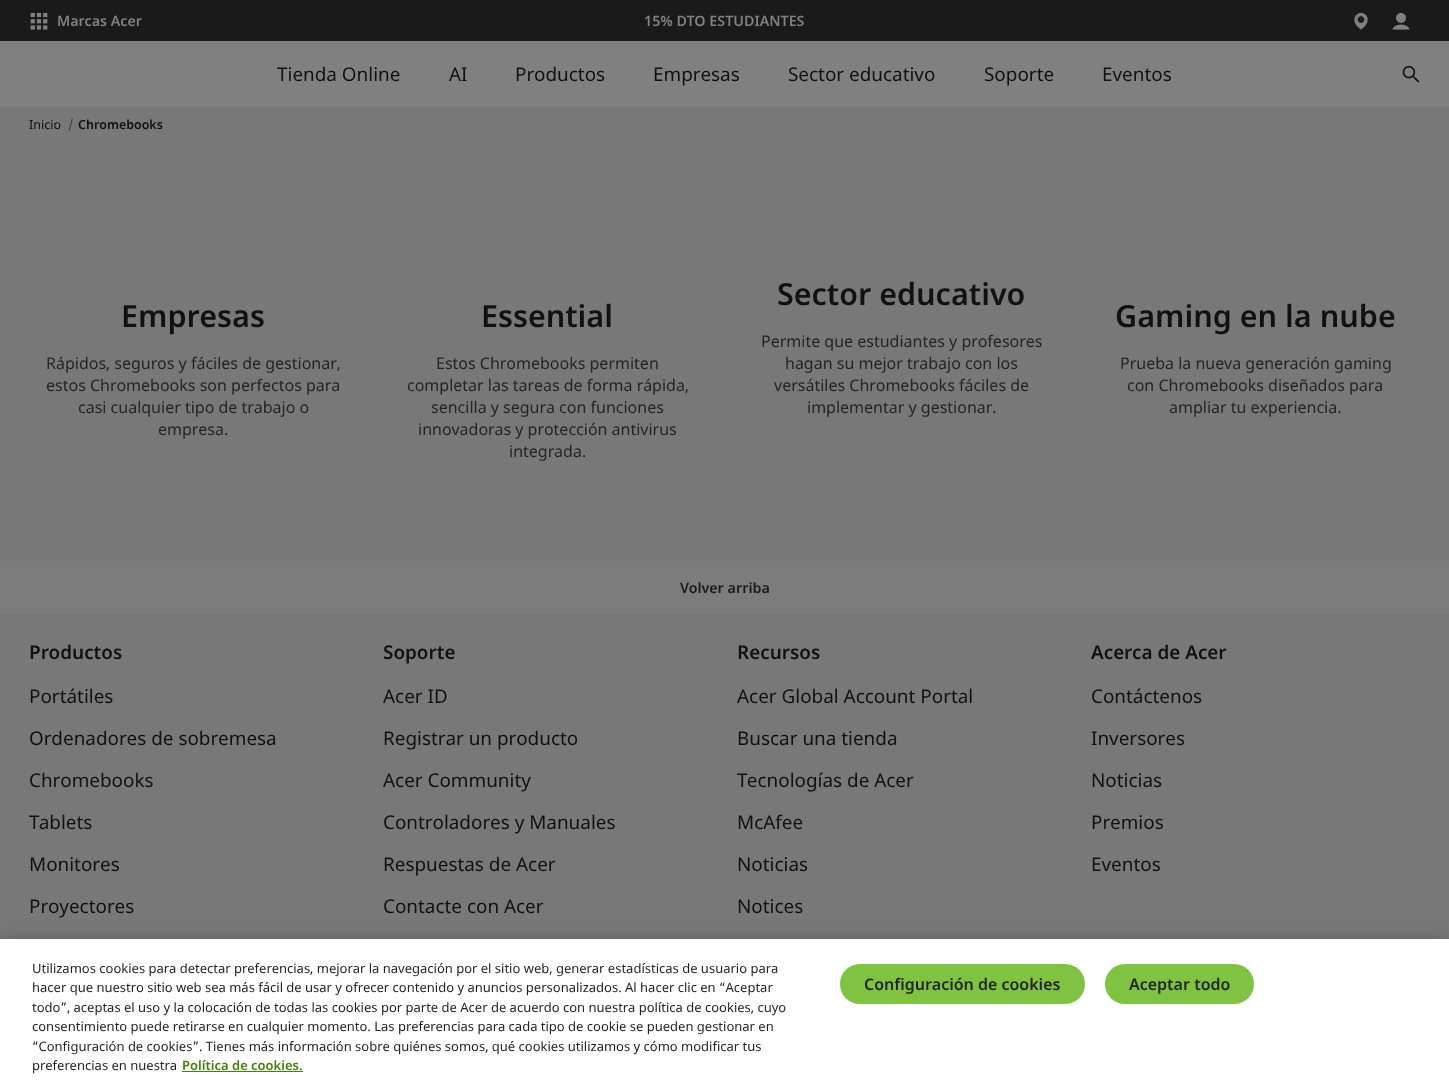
(async () => {
    const canvas = document.querySelector("canvas");
    canvas.width = 1449;
    canvas.height = 1086;
    const context = canvas.getContext("2d");
    context.miterLimit = 4;
    context.fontKerning = "normal";
    function write(s, x, y, font, color) {
        context.font = font;
        context.fillStyle = color;
        context.fillText(s, x, y);
    }
    function block(x, y, w, h, color) {
        context.fillStyle = color;
        context.fillRect(x, y, w, h);
    }
    function card(x, y, w, h, r, color) {
        context.fillStyle = color;
        context.beginPath();
        context.roundRect(x, y, w, h, r);
        context.fill();
    }
    async function photo(src, x, y, w, h) {
        const img = new Image();
        img.src = src;
        await img.decode();
        context.drawImage(img, x, y, w, h);
    }

    block(0, 0, 1449, 1086, "rgb(128, 128, 128)");
    block(0, 0, 1449, 41, "rgb(26, 26, 26)");
    await photo("media/1.png", 30, 12, 18, 18);
    write("Marcas Acer", 57, 26, "600 14.25px Noto Sans", "rgb(128, 128, 128)");
    write("15% DTO ESTUDIANTES", 644, 26, "600 14.25px Noto Sans", "rgb(128, 128, 128)");
    await photo("media/2.png", 1354, 12, 14, 18);
    await photo("media/3.png", 1392, 12, 18, 18);
    write("Tienda Online", 277, 81, "18.9px Noto Sans", "rgb(17, 17, 17)");
    write("AI", 449, 81, "18.9px Noto Sans", "rgb(17, 17, 17)");
    write("Productos", 515, 81, "18.9px Noto Sans", "rgb(17, 17, 17)");
    write("Empresas", 653, 81, "18.9px Noto Sans", "rgb(17, 17, 17)");
    write("Sector educativo", 788, 81, "18.9px Noto Sans", "rgb(17, 17, 17)");
    write("Soporte", 984, 81, "18.9px Noto Sans", "rgb(17, 17, 17)");
    write("Eventos", 1102, 81, "18.9px Noto Sans", "rgb(17, 17, 17)");
    await photo("media/4.png", 1402, 65, 18, 18);
    block(0, 107, 1449, 454, "rgb(120, 120, 120)");
    write("Inicio", 29, 129, "12.5px Noto Sans", "rgb(17, 17, 17)");
    write("/", 68, 129, "12.5px Noto Sans", "rgb(59, 59, 59)");
    write("Chromebooks", 78, 129, "600 12.5px Noto Sans", "rgb(17, 17, 17)");
    write("Empresas", 121, 327, "600 30.5px Noto Sans", "rgb(17, 17, 17)");
    write("Rápidos, seguros y fáciles de gestionar,", 46, 369, "16px Noto Sans", "rgb(36, 36, 36)");
    write("estos Chromebooks son perfectos para", 46, 391, "16px Noto Sans", "rgb(36, 36, 36)");
    write("casi cualquier tipo de trabajo o", 78, 413, "16px Noto Sans", "rgb(36, 36, 36)");
    write("empresa.", 158, 435, "16px Noto Sans", "rgb(36, 36, 36)");
    write("Essential", 481, 327, "600 30.5px Noto Sans", "rgb(17, 17, 17)");
    write("Estos Chromebooks permiten", 436, 369, "16px Noto Sans", "rgb(36, 36, 36)");
    write("completar las tareas de forma rápida,", 407, 391, "16px Noto Sans", "rgb(36, 36, 36)");
    write("sencilla y segura con funciones", 431, 413, "16px Noto Sans", "rgb(36, 36, 36)");
    write("innovadoras y protección antivirus", 418, 435, "16px Noto Sans", "rgb(36, 36, 36)");
    write("integrada.", 509, 457, "16px Noto Sans", "rgb(36, 36, 36)");
    write("Sector educativo", 777, 305, "600 30.5px Noto Sans", "rgb(17, 17, 17)");
    write("Permite que estudiantes y profesores", 761, 347, "16px Noto Sans", "rgb(36, 36, 36)");
    write("hagan su mejor trabajo con los", 785, 369, "16px Noto Sans", "rgb(36, 36, 36)");
    write("versátiles Chromebooks fáciles de", 774, 391, "16px Noto Sans", "rgb(36, 36, 36)");
    write("implementar y gestionar.", 807, 413, "16px Noto Sans", "rgb(36, 36, 36)");
    write("Gaming en la nube", 1115, 327, "600 30.5px Noto Sans", "rgb(17, 17, 17)");
    write("Prueba la nueva generación gaming", 1120, 369, "16px Noto Sans", "rgb(36, 36, 36)");
    write("con Chromebooks diseñados para", 1127, 391, "16px Noto Sans", "rgb(36, 36, 36)");
    write("ampliar tu experiencia.", 1169, 413, "16px Noto Sans", "rgb(36, 36, 36)");
    block(0, 614, 1449, 325, "rgb(120, 120, 120)");
    block(0, 561, 1449, 53, "rgb(124, 124, 124)");
    write("Volver arriba", 680, 593, "600 14.25px Noto Sans", "rgb(26, 26, 26)");
    write("Productos", 29, 659, "600 18.9px Noto Sans", "rgb(17, 17, 17)");
    write("Portátiles", 29, 703, "18.9px Noto Sans", "rgb(17, 17, 17)");
    write("Ordenadores de sobremesa", 29, 745, "18.9px Noto Sans", "rgb(17, 17, 17)");
    write("Chromebooks", 29, 787, "18.9px Noto Sans", "rgb(17, 17, 17)");
    write("Tablets", 29, 829, "18.9px Noto Sans", "rgb(17, 17, 17)");
    write("Monitores", 29, 871, "18.9px Noto Sans", "rgb(17, 17, 17)");
    write("Proyectores", 29, 913, "18.9px Noto Sans", "rgb(17, 17, 17)");
    write("Soporte", 383, 659, "600 18.9px Noto Sans", "rgb(17, 17, 17)");
    write("Acer ID", 383, 703, "18.9px Noto Sans", "rgb(17, 17, 17)");
    write("Registrar un producto", 383, 745, "18.9px Noto Sans", "rgb(17, 17, 17)");
    write("Acer Community", 383, 787, "18.9px Noto Sans", "rgb(17, 17, 17)");
    write("Controladores y Manuales", 383, 829, "18.9px Noto Sans", "rgb(17, 17, 17)");
    write("Respuestas de Acer", 383, 871, "18.9px Noto Sans", "rgb(17, 17, 17)");
    write("Contacte con Acer", 383, 913, "18.9px Noto Sans", "rgb(17, 17, 17)");
    write("Recursos", 737, 659, "600 18.9px Noto Sans", "rgb(17, 17, 17)");
    write("Acer Global Account Portal", 737, 703, "18.9px Noto Sans", "rgb(17, 17, 17)");
    write("Buscar una tienda", 737, 745, "18.9px Noto Sans", "rgb(17, 17, 17)");
    write("Tecnologías de Acer", 737, 787, "18.9px Noto Sans", "rgb(17, 17, 17)");
    write("McAfee", 737, 829, "18.9px Noto Sans", "rgb(17, 17, 17)");
    write("Noticias", 737, 871, "18.9px Noto Sans", "rgb(17, 17, 17)");
    write("Notices", 737, 913, "18.9px Noto Sans", "rgb(17, 17, 17)");
    write("Acerca de Acer", 1091, 659, "600 18.9px Noto Sans", "rgb(17, 17, 17)");
    write("Contáctenos", 1091, 703, "18.9px Noto Sans", "rgb(17, 17, 17)");
    write("Inversores", 1091, 745, "18.9px Noto Sans", "rgb(17, 17, 17)");
    write("Noticias", 1091, 787, "18.9px Noto Sans", "rgb(17, 17, 17)");
    write("Premios", 1091, 829, "18.9px Noto Sans", "rgb(17, 17, 17)");
    write("Eventos", 1091, 871, "18.9px Noto Sans", "rgb(17, 17, 17)");
    context.fillStyle = "rgba(0, 0, 0, 0.2)";
    context.filter = "blur(9px)";
    context.beginPath();
    context.rect(0, 939, 1449, 147);
    context.fill();
    context.filter = "none";
    block(0, 939, 1449, 147, "rgb(255, 255, 255)");
    write("Utilizamos cookies para detectar preferencias, mejorar la navegación por el sitio web, generar estadísticas de usuario para", 32, 973, "13px Noto Sans", "rgb(36, 36, 36)");
    write("hacer que nuestro sitio web sea más fácil de usar y ofrecer contenido y anuncios personalizados. Al hacer clic en “Aceptar", 32, 992, "13px Noto Sans", "rgb(36, 36, 36)");
    write("todo”, aceptas el uso y la colocación de todas las cookies por parte de Acer de acuerdo con nuestra política de cookies, cuyo", 32, 1012, "13px Noto Sans", "rgb(36, 36, 36)");
    write("consentimiento puede retirarse en cualquier momento. Las preferencias para cada tipo de cookie se pueden gestionar en", 32, 1031, "13px Noto Sans", "rgb(36, 36, 36)");
    write("“Configuración de cookies”. Tienes más información sobre quiénes somos, qué cookies utilizamos y cómo modificar tus", 32, 1051, "13px Noto Sans", "rgb(36, 36, 36)");
    write("preferencias en nuestra", 32, 1070, "13px Noto Sans", "rgb(36, 36, 36)");
    write("Política de cookies.", 182, 1070, "600 13px Noto Sans", "rgb(64, 129, 12)");
    block(182, 1071, 121, 1, "rgb(64, 129, 12)");
    card(840, 964, 245, 40, 20, "rgb(128, 195, 67)");
    write("Configuración de cookies", 864, 990, "600 16px Noto Sans", "rgb(36, 36, 36)");
    card(1105, 964, 149, 40, 20, "rgb(128, 195, 67)");
    write("Aceptar todo", 1129, 990, "600 16px Noto Sans", "rgb(36, 36, 36)");
})();
